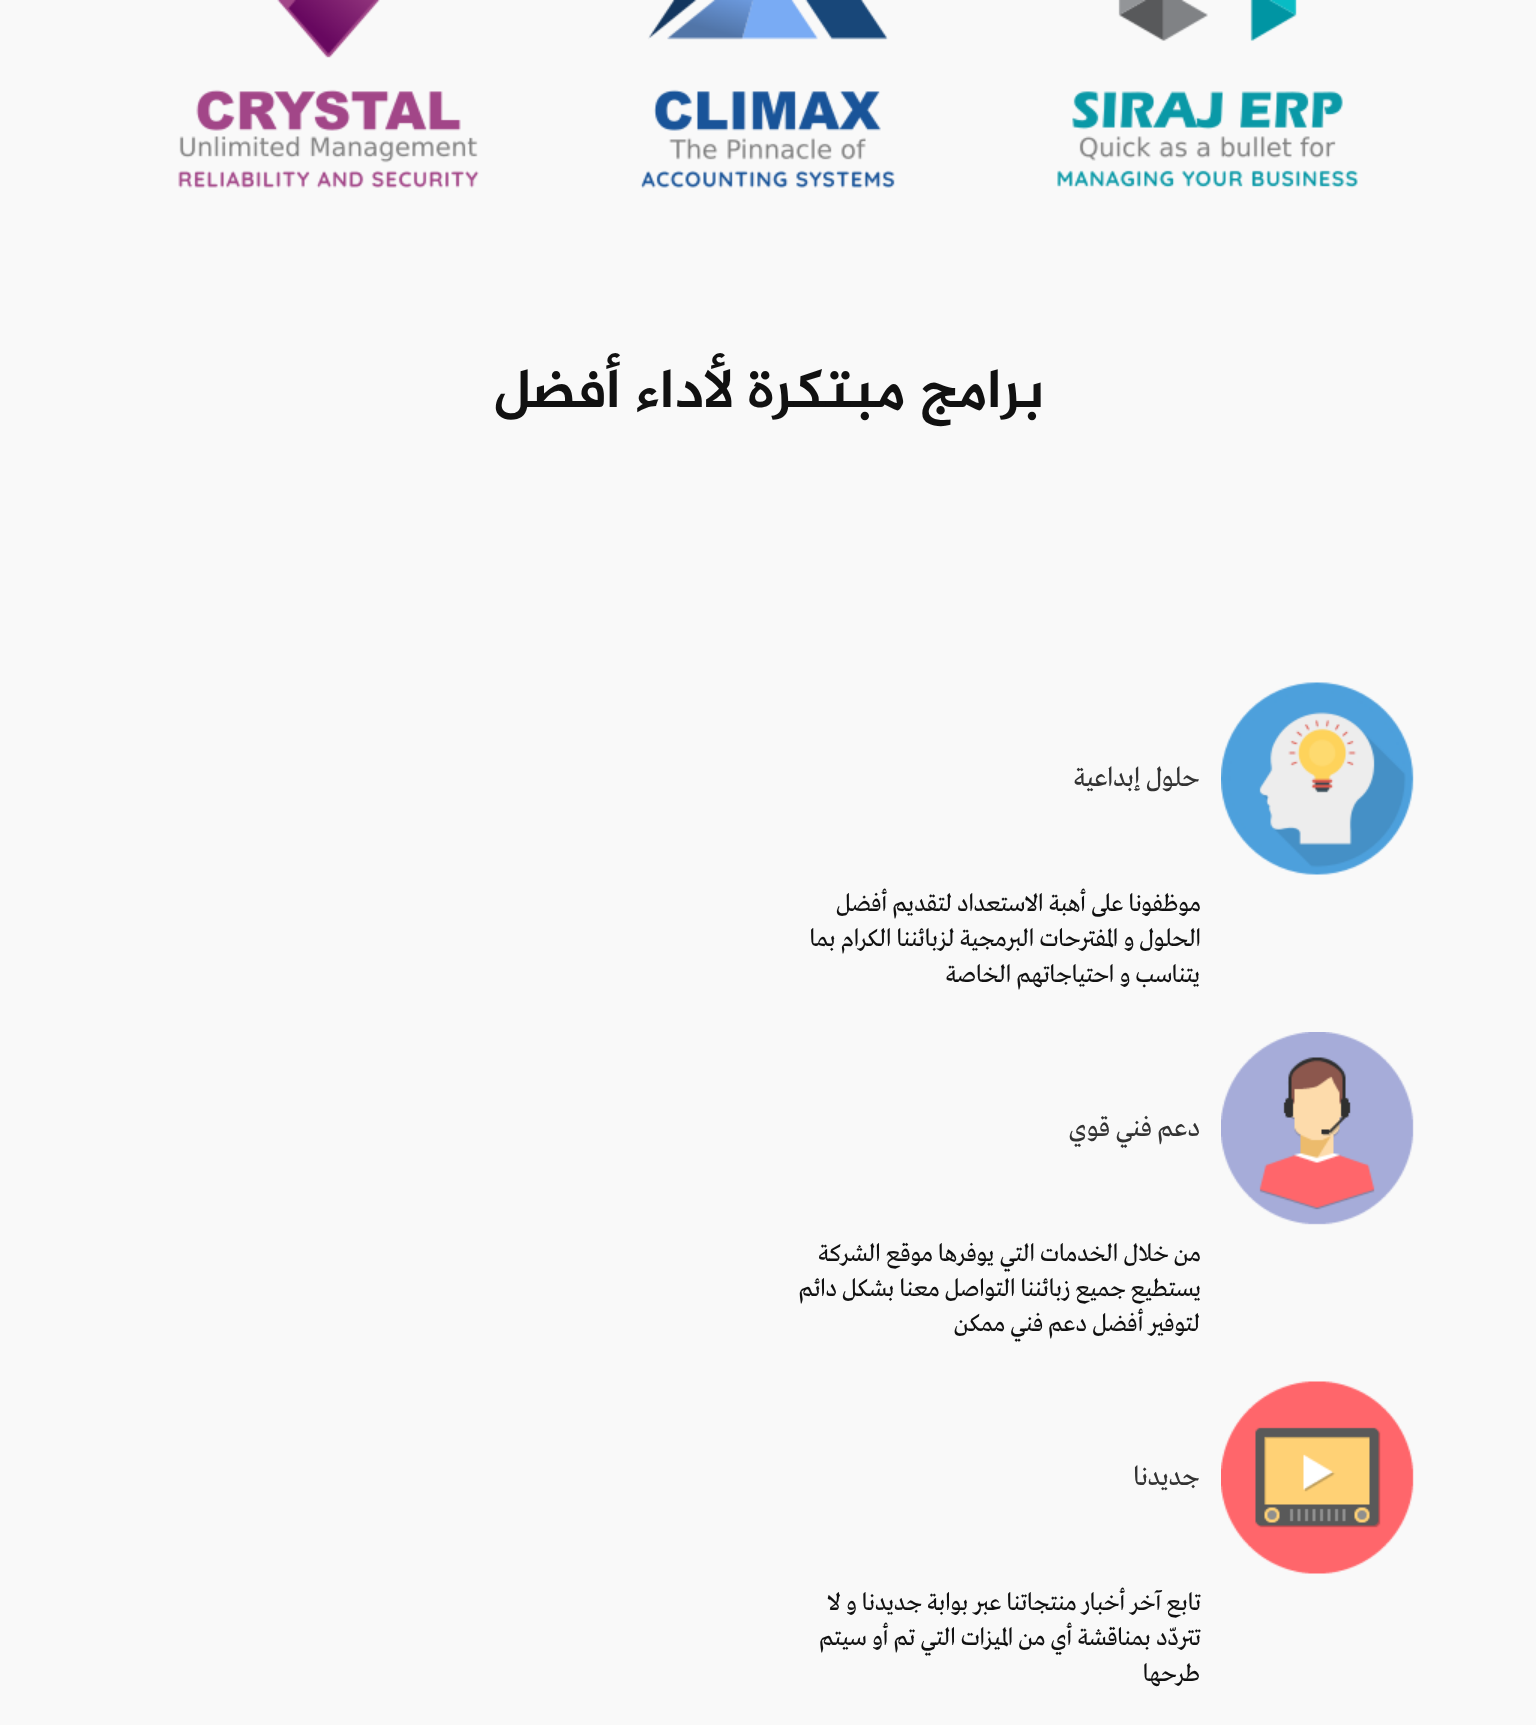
(async () => {
    const canvas = document.querySelector("canvas");
    canvas.width = 1536;
    canvas.height = 1725;
    const context = canvas.getContext("2d");
    context.miterLimit = 4;
    context.fontKerning = "normal";
    function write(s, x, y, font, color) {
        context.font = font;
        context.fillStyle = color;
        context.fillText(s, x, y);
    }
    function block(x, y, w, h, color) {
        context.fillStyle = color;
        context.fillRect(x, y, w, h);
    }
    async function photo(src, x, y, w, h) {
        const img = new Image();
        img.src = src;
        await img.decode();
        context.drawImage(img, x, y, w, h);
    }

    block(0, 0, 1536, 1725, "rgb(249, 249, 249)");
    await photo("media/1.png", 1057, 0, 301, 188);
    await photo("media/2.png", 640, 0, 255, 188);
    await photo("media/3.png", 178, 0, 301, 188);
    context.direction = "rtl";
    write("برامج مبتكرة لأداء أفضل", 1044, 407, "bold 55.75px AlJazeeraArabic", "rgb(17, 17, 17)");
    await photo("media/4.png", 1221, 682, 193, 193);
    write("حلول إبداعية", 1200, 786, "27.75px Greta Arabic", "rgb(51, 51, 51)");
    write("موظفونا على أهبة الاستعداد لتقديم أفضل", 1201, 911, "25.25px Greta Arabic", "rgb(17, 17, 17)");
    write("الحلول و المفترحات البرمجية لزبائننا الكرام بما", 1201, 946, "25.25px Greta Arabic", "rgb(17, 17, 17)");
    write("يتناسب و احتياجاتهم الخاصة", 1200, 982, "25.25px Greta Arabic", "rgb(17, 17, 17)");
    await photo("media/5.png", 1221, 1032, 193, 193);
    write("دعم فني قوي", 1200, 1136, "27.75px Greta Arabic", "rgb(51, 51, 51)");
    write("من خلال الخدمات التي يوفرها موقع الشركة", 1201, 1261, "25.25px Greta Arabic", "rgb(17, 17, 17)");
    write("يستطيع جميع زبائننا التواصل معنا بشكل دائم", 1201, 1296, "25.25px Greta Arabic", "rgb(17, 17, 17)");
    write("لتوفير أفضل دعم فني ممكن", 1200, 1331, "25.25px Greta Arabic", "rgb(17, 17, 17)");
    await photo("media/6.png", 1221, 1381, 193, 193);
    write("جديدنا", 1200, 1485, "27.75px Greta Arabic", "rgb(51, 51, 51)");
    write("تابع آخر أخبار منتجاتنا عبر بوابة جديدنا و لا", 1201, 1610, "25.25px Greta Arabic", "rgb(17, 17, 17)");
    write("تتردّد بمناقشة أي من الميزات التي تم أو سيتم", 1201, 1645, "25.25px Greta Arabic", "rgb(17, 17, 17)");
    write("طرحها", 1200, 1681, "25.25px Greta Arabic", "rgb(17, 17, 17)");
})();
